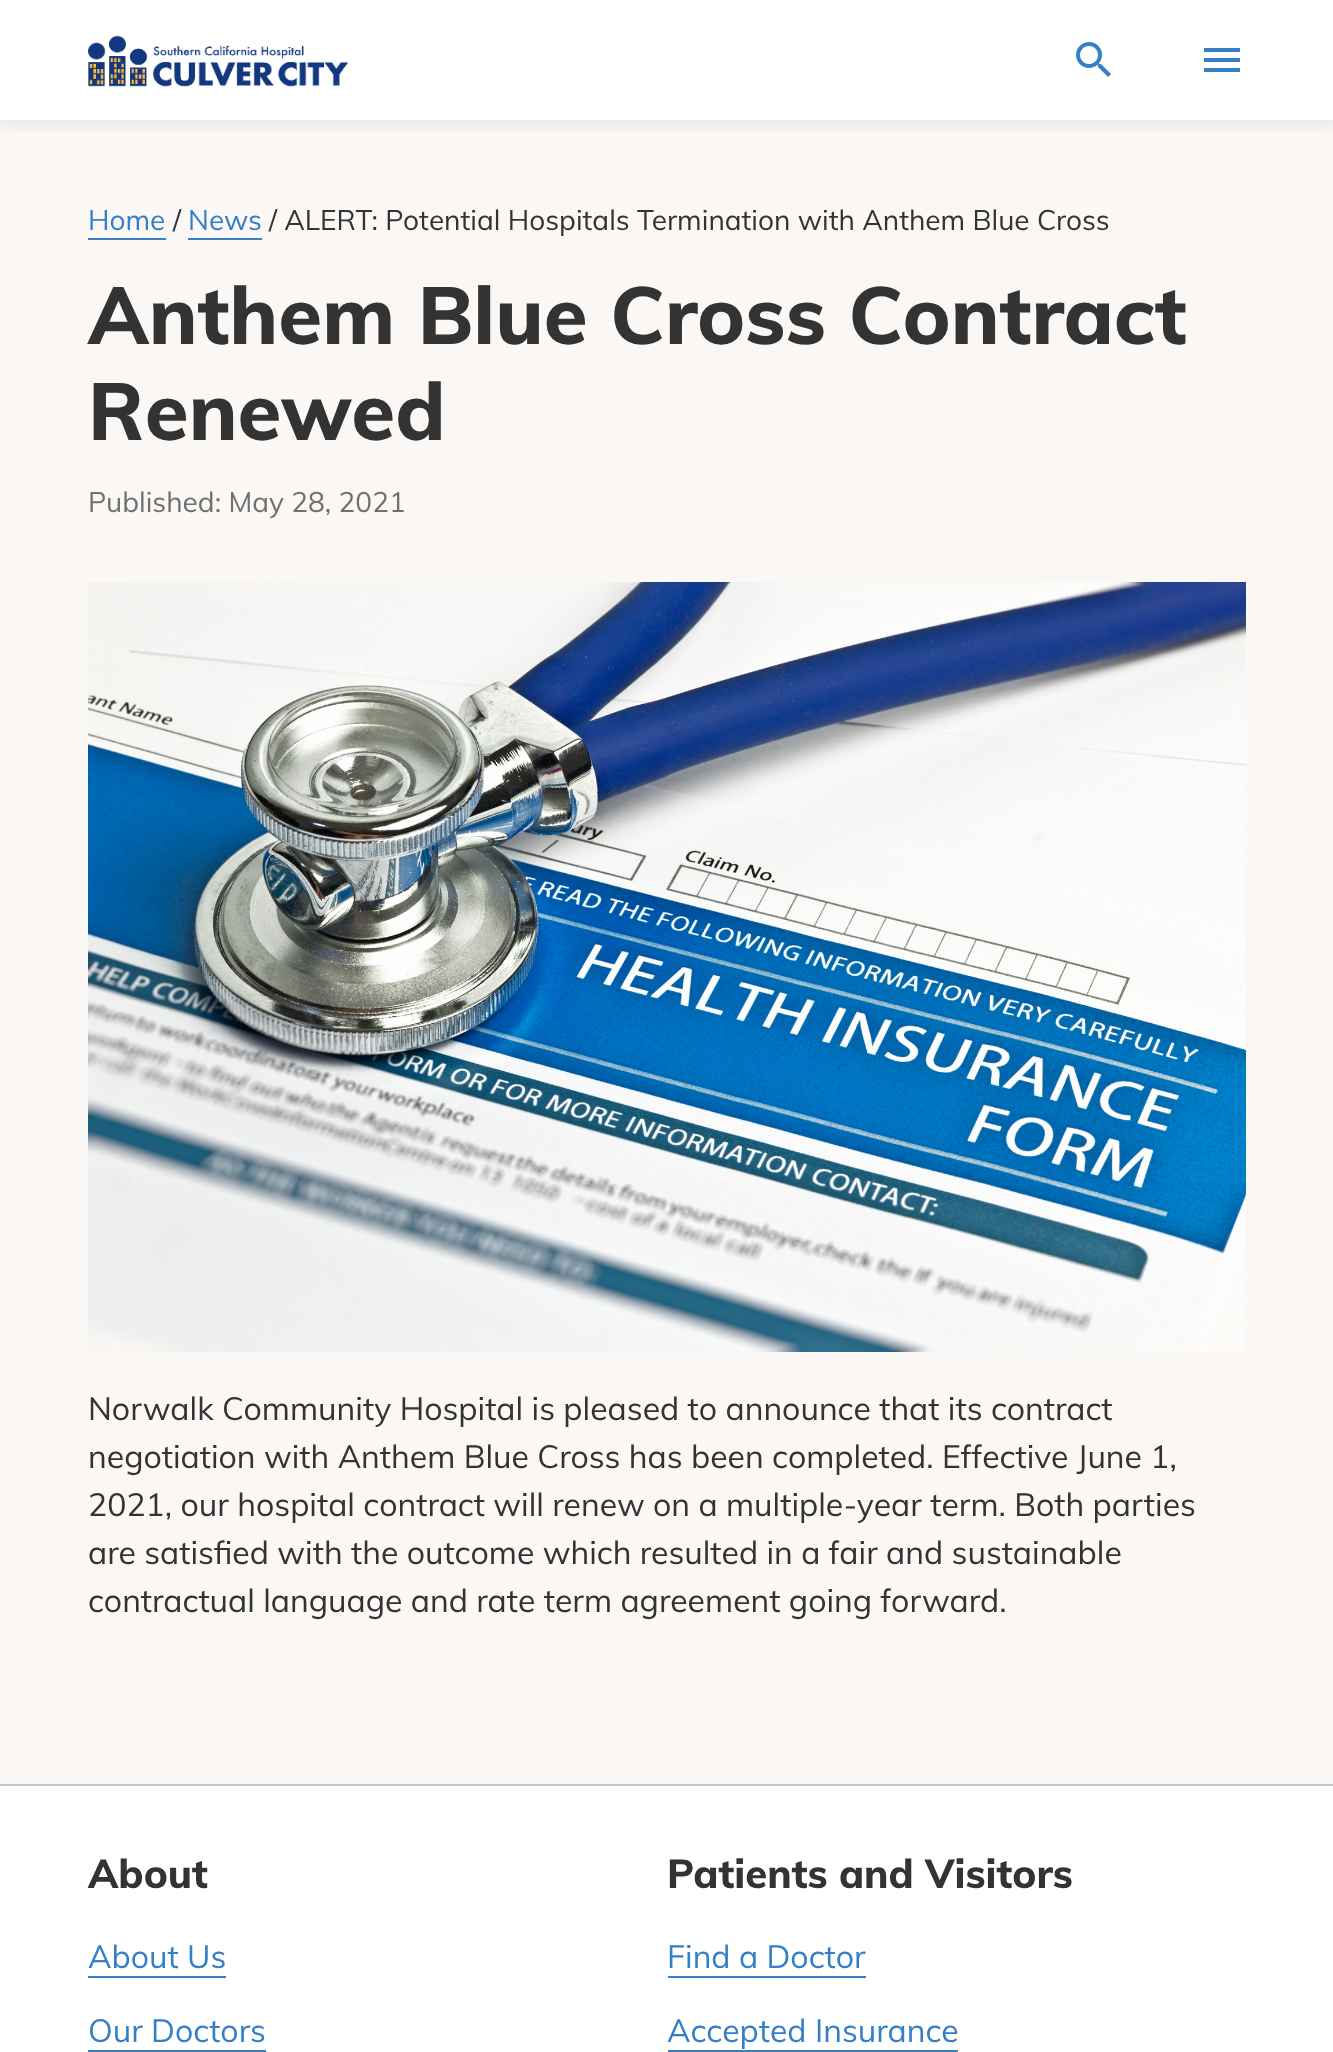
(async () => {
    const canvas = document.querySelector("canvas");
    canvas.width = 1333;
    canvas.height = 2052;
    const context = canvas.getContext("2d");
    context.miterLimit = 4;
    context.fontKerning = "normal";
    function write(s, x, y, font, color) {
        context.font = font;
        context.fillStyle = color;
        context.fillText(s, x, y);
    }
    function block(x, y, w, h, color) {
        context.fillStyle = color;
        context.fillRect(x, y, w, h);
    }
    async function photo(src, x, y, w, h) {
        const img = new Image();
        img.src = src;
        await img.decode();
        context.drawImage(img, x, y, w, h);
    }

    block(0, 0, 1333, 2052, "rgb(255, 255, 255)");
    block(0, 120, 1333, 1664, "rgb(250, 247, 245)");
    context.save();
    context.beginPath();
    context.rect(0, 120, 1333, 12);
    context.clip();
    context.fillStyle = "rgba(0, 0, 0, 0.1)";
    context.filter = "blur(12px)";
    context.beginPath();
    context.rect(0, 2, 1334, 120);
    context.fill();
    context.filter = "none";
    context.restore();
    await photo("media/1.png", 88, 35, 260, 52);
    await photo("media/2.png", 1076, 42, 35, 35);
    block(1204, 58, 36, 4, "rgb(53, 127, 199)");
    block(1204, 48, 36, 4, "rgb(53, 127, 199)");
    block(1204, 68, 36, 4, "rgb(53, 127, 199)");
    write("Home", 88, 230, "28px Muli", "rgb(53, 127, 199)");
    block(88, 238, 78, 2, "rgb(53, 127, 199)");
    write("/", 173, 230, "28px Muli", "rgb(51, 51, 51)");
    write("News", 188, 230, "28px Muli", "rgb(53, 127, 199)");
    block(188, 238, 74, 2, "rgb(53, 127, 199)");
    write("/ ALERT: Potential Hospitals Termination with Anthem Blue Cross", 269, 230, "28px Muli", "rgb(51, 51, 51)");
    write("Anthem Blue Cross Contract", 88, 344, "800 80px Muli", "rgb(51, 51, 51)");
    write("Renewed", 88, 440, "800 80px Muli", "rgb(51, 51, 51)");
    write("Published: May 28, 2021", 88, 512, "28px Muli", "rgb(112, 112, 112)");
    await photo("media/3.png", 88, 582, 1158, 770);
    write("Norwalk Community Hospital is pleased to announce that its contract", 88, 1420, "32px Muli", "rgb(51, 51, 51)");
    write("negotiation with Anthem Blue Cross has been completed. Effective June 1,", 88, 1468, "32px Muli", "rgb(51, 51, 51)");
    write("2021, our hospital contract will renew on a multiple-year term. Both parties", 88, 1516, "32px Muli", "rgb(51, 51, 51)");
    write("are satisfied with the outcome which resulted in a fair and sustainable", 88, 1564, "32px Muli", "rgb(51, 51, 51)");
    write("contractual language and rate term agreement going forward.", 88, 1612, "32px Muli", "rgb(51, 51, 51)");
    block(0, 1784, 1333, 2, "rgb(196, 196, 196)");
    write("About", 88, 1888, "800 40px Muli", "rgb(51, 51, 51)");
    write("About Us", 88, 1968, "32px Muli", "rgb(53, 127, 199)");
    block(88, 1976, 138, 2, "rgb(53, 127, 199)");
    write("Our Doctors", 88, 2042, "32px Muli", "rgb(53, 127, 199)");
    block(88, 2050, 178, 2, "rgb(53, 127, 199)");
    write("Patients and Visitors", 667, 1888, "800 40px Muli", "rgb(51, 51, 51)");
    write("Find a Doctor", 667, 1968, "32px Muli", "rgb(53, 127, 199)");
    block(668, 1976, 198, 2, "rgb(53, 127, 199)");
    write("Accepted Insurance", 667, 2042, "32px Muli", "rgb(53, 127, 199)");
    block(668, 2050, 290, 2, "rgb(53, 127, 199)");
})();
